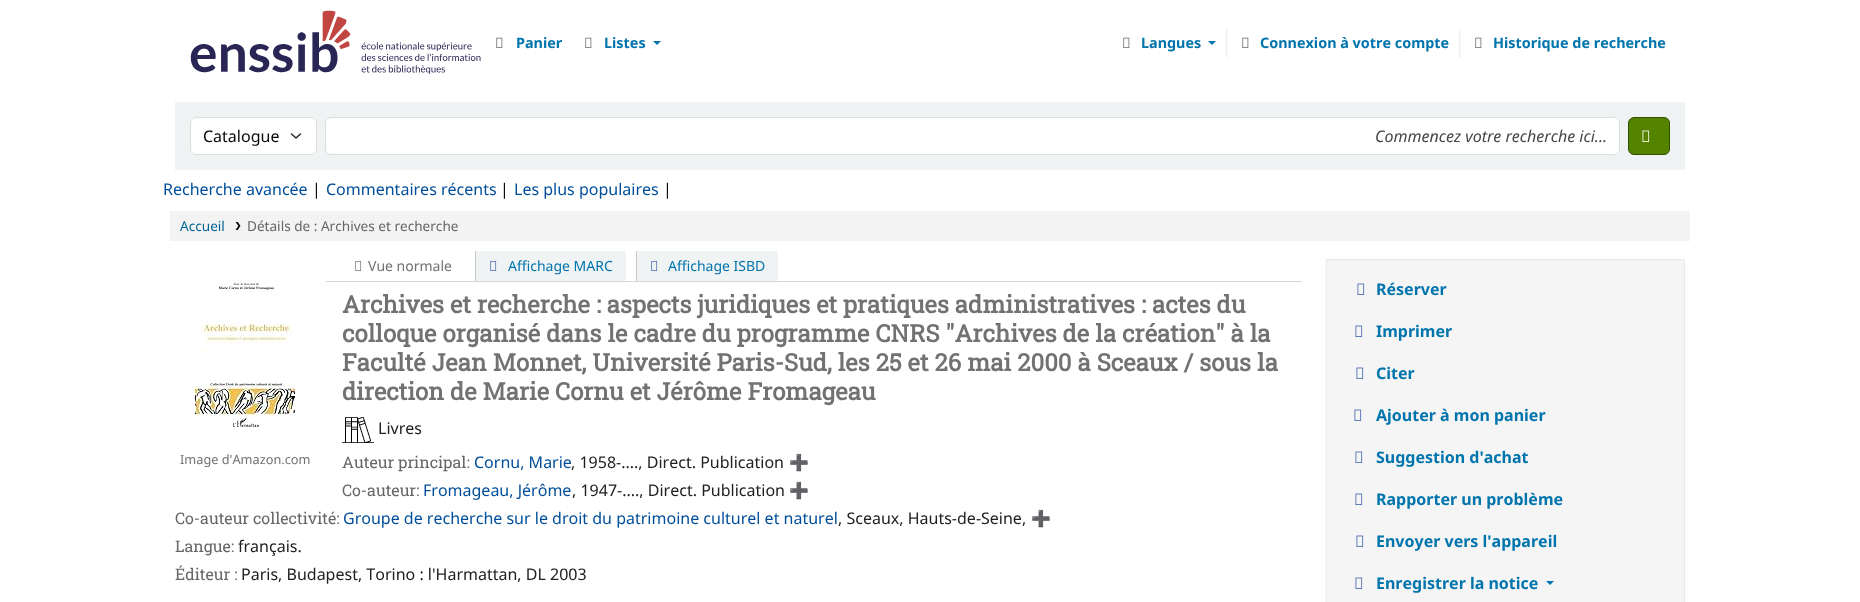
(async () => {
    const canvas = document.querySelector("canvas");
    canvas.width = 1860;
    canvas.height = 602;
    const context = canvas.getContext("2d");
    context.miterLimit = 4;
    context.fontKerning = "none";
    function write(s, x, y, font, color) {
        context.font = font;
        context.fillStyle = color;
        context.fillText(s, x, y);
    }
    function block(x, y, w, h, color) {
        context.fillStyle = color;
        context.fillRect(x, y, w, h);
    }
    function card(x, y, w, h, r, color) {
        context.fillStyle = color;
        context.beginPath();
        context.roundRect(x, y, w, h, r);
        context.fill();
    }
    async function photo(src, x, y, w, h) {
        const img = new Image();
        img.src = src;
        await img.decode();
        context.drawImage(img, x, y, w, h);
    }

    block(0, 0, 1860, 602, "rgb(255, 255, 255)");
    await photo("media/1.png", 190, 10, 291, 64);
    await photo("media/2.png", 496, 37, 7, 11);
    write("Panier", 516, 48, "bold 14.4px Noto Sans", "rgb(0, 116, 173)");
    await photo("media/2.png", 585, 37, 7, 11);
    write("Listes", 604, 48, "bold 14.4px Noto Sans", "rgb(0, 116, 173)");
    context.beginPath();
    context.moveTo(653, 41);
    context.lineTo(661, 41);
    context.lineTo(657, 45);
    context.closePath();
    context.fill();
    await photo("media/2.png", 1123, 37, 7, 11);
    write("Langues", 1141, 48, "bold 14.4px Noto Sans", "rgb(0, 116, 173)");
    context.beginPath();
    context.moveTo(1208, 41);
    context.lineTo(1216, 41);
    context.lineTo(1212, 45);
    context.closePath();
    context.fill();
    block(1227, 29, 1, 28, "rgb(252, 249, 252)");
    block(1226, 56, 2, 1, "rgb(238, 238, 238)");
    block(1226, 29, 1, 28, "rgb(238, 238, 238)");
    await photo("media/2.png", 1242, 37, 7, 11);
    write("Connexion à votre compte", 1260, 48, "bold 14.4px Noto Sans", "rgb(0, 116, 173)");
    block(1460, 29, 1, 28, "rgb(252, 249, 252)");
    block(1459, 56, 2, 1, "rgb(238, 238, 238)");
    block(1459, 29, 1, 28, "rgb(238, 238, 238)");
    await photo("media/2.png", 1475, 37, 7, 11);
    write("Historique de recherche", 1493, 48, "bold 14.4px Noto Sans", "rgb(0, 116, 173)");
    block(175, 102, 1510, 68, "rgb(240, 243, 243)");
    card(190, 117, 127, 38, 6, "rgb(255, 255, 255)");
    context.beginPath();
    context.moveTo(291.5, 134);
    context.lineTo(296, 138);
    context.lineTo(300.5, 134);
    context.strokeStyle = "rgb(37, 37, 37)";
    context.lineWidth = 1.5;
    context.lineCap = "round";
    context.lineJoin = "round";
    context.stroke();
    context.beginPath();
    context.roundRect(190.5, 117.5, 126, 37, 5.5);
    context.strokeStyle = "rgb(221, 221, 221)";
    context.lineWidth = 1;
    context.lineJoin = "miter";
    context.stroke();
    write("Catalogue", 203, 142, "16px Noto Sans", "rgb(7, 7, 7)");
    context.fillStyle = "rgb(255, 255, 255)";
    context.beginPath();
    context.roundRect(325.5, 117.5, 1294, 37, 5.5);
    context.fill();
    context.stroke();
    write("Commencez votre recherche ici...", 1375, 142, "italic 16px Noto Sans", "rgb(69, 69, 69)");
    context.fillStyle = "rgb(84, 131, 0)";
    context.beginPath();
    context.roundRect(1628.5, 117.5, 41, 37, 5.5);
    context.fill();
    context.strokeStyle = "rgb(51, 80, 0)";
    context.stroke();
    await photo("media/3.png", 1642, 130, 8, 12);
    write("Recherche avancée", 163, 195, "16px Noto Sans", "rgb(0, 77, 153)");
    write("|", 312, 195, "16px Noto Sans", "rgb(7, 7, 7)");
    write("Commentaires récents", 326, 195, "16px Noto Sans", "rgb(0, 77, 153)");
    write("|", 500, 195, "16px Noto Sans", "rgb(7, 7, 7)");
    write("Les plus populaires", 514, 195, "16px Noto Sans", "rgb(0, 77, 153)");
    write("|", 663, 195, "16px Noto Sans", "rgb(7, 7, 7)");
    block(170, 211, 1520, 30, "rgb(243, 243, 243)");
    write("Accueil", 180, 231, "13.6px Noto Sans", "rgb(0, 99, 148)");
    await photo("media/4.png", 235, 222, 6, 8);
    write("Détails de : Archives et recherche", 247, 231, "13.6px Noto Sans", "rgb(102, 102, 102)");
    block(326, 281, 976, 1, "rgb(214, 214, 214)");
    await photo("media/5.png", 355, 261, 7, 10);
    write("Vue normale", 368, 271, "14px Noto Sans", "rgb(114, 114, 114)");
    block(476, 251, 150, 30, "rgb(240, 243, 243)");
    block(475, 251, 1, 30, "rgb(201, 201, 201)");
    await photo("media/6.png", 490, 261, 7, 10);
    write("Affichage MARC", 508, 271, "14px Noto Sans", "rgb(0, 116, 173)");
    block(637, 251, 141, 30, "rgb(240, 243, 243)");
    block(636, 251, 1, 30, "rgb(201, 201, 201)");
    await photo("media/6.png", 651, 261, 7, 10);
    write("Affichage ISBD", 668, 271, "14px Noto Sans", "rgb(0, 116, 173)");
    write("Archives et recherche : aspects juridiques et pratiques administratives : actes du", 342, 313, "bold 24px Roboto Slab", "rgb(114, 114, 114)");
    write("colloque organisé dans le cadre du programme CNRS \"Archives de la création\" à la", 342, 342, "bold 24px Roboto Slab", "rgb(114, 114, 114)");
    write("Faculté Jean Monnet, Université Paris-Sud, les 25 et 26 mai 2000 à Sceaux / sous la", 342, 371, "bold 24px Roboto Slab", "rgb(114, 114, 114)");
    write("direction de Marie Cornu et Jérôme Fromageau", 342, 400, "bold 24px Roboto Slab", "rgb(114, 114, 114)");
    await photo("media/7.png", 342, 417, 32, 26);
    write("Livres", 378, 434, "16px Noto Sans", "rgb(32, 32, 32)");
    await photo("media/8.png", 195, 282, 100, 149);
    write("Image d'Amazon.com", 180, 464, "12.75px Noto Sans", "rgb(114, 114, 114)");
    write("Auteur principal:", 342, 468, "16px Roboto Slab", "rgb(102, 102, 102)");
    write("Cornu, Marie", 474, 468, "16px Noto Sans", "rgb(0, 77, 153)");
    write(", 1958-...., Direct. Publication", 571, 468, "16px Noto Sans", "rgb(32, 32, 32)");
    write("➕", 789, 468, "16px Noto Color Emoji", "rgb(0, 77, 153)");
    write("Co-auteur:", 342, 496, "16px Roboto Slab", "rgb(102, 102, 102)");
    write("Fromageau, Jérôme", 423, 496, "16px Noto Sans", "rgb(0, 77, 153)");
    write(", 1947-...., Direct. Publication", 572, 496, "16px Noto Sans", "rgb(32, 32, 32)");
    write("➕", 789, 496, "16px Noto Color Emoji", "rgb(0, 77, 153)");
    write("Co-auteur collectivité:", 175, 524, "16px Roboto Slab", "rgb(102, 102, 102)");
    write("Groupe de recherche sur le droit du patrimoine culturel et naturel", 343, 524, "16px Noto Sans", "rgb(0, 77, 153)");
    write(", Sceaux, Hauts-de-Seine,", 838, 524, "16px Noto Sans", "rgb(32, 32, 32)");
    write("➕", 1031, 524, "16px Noto Color Emoji", "rgb(0, 77, 153)");
    write("Langue:", 175, 552, "16px Roboto Slab", "rgb(102, 102, 102)");
    write("français.", 238, 552, "16px Noto Sans", "rgb(32, 32, 32)");
    write("Éditeur :", 175, 580, "16px Roboto Slab", "rgb(102, 102, 102)");
    write("Paris, Budapest, Torino : l'Harmattan, DL 2003", 241, 580, "16px Noto Sans", "rgb(32, 32, 32)");
    context.fillStyle = "rgb(245, 245, 245)";
    context.beginPath();
    context.rect(1326.5, 259.5, 358, 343);
    context.fill();
    context.strokeStyle = "rgb(232, 232, 232)";
    context.stroke();
    await photo("media/9.png", 1357, 283, 8, 12);
    write("Réserver", 1376, 295, "bold 16px Noto Sans", "rgb(0, 116, 173)");
    await photo("media/9.png", 1355, 325, 8, 12);
    write("Imprimer", 1376, 337, "bold 16px Noto Sans", "rgb(0, 116, 173)");
    await photo("media/9.png", 1356, 367, 8, 12);
    write("Citer", 1376, 379, "bold 16px Noto Sans", "rgb(0, 116, 173)");
    await photo("media/9.png", 1354, 409, 8, 12);
    write("Ajouter à mon panier", 1376, 421, "bold 16px Noto Sans", "rgb(0, 116, 173)");
    await photo("media/9.png", 1355, 451, 8, 12);
    write("Suggestion d'achat", 1376, 463, "bold 16px Noto Sans", "rgb(0, 116, 173)");
    await photo("media/9.png", 1355, 493, 8, 12);
    write("Rapporter un problème", 1376, 505, "bold 16px Noto Sans", "rgb(0, 116, 173)");
    await photo("media/9.png", 1356, 535, 8, 12);
    write("Envoyer vers l'appareil", 1376, 547, "bold 16px Noto Sans", "rgb(0, 116, 173)");
    await photo("media/9.png", 1355, 577, 8, 12);
    write("Enregistrer la notice", 1376, 589, "bold 16px Noto Sans", "rgb(0, 116, 173)");
    context.beginPath();
    context.moveTo(1546, 581);
    context.lineTo(1554, 581);
    context.lineTo(1550, 585);
    context.closePath();
    context.fill();
})();
